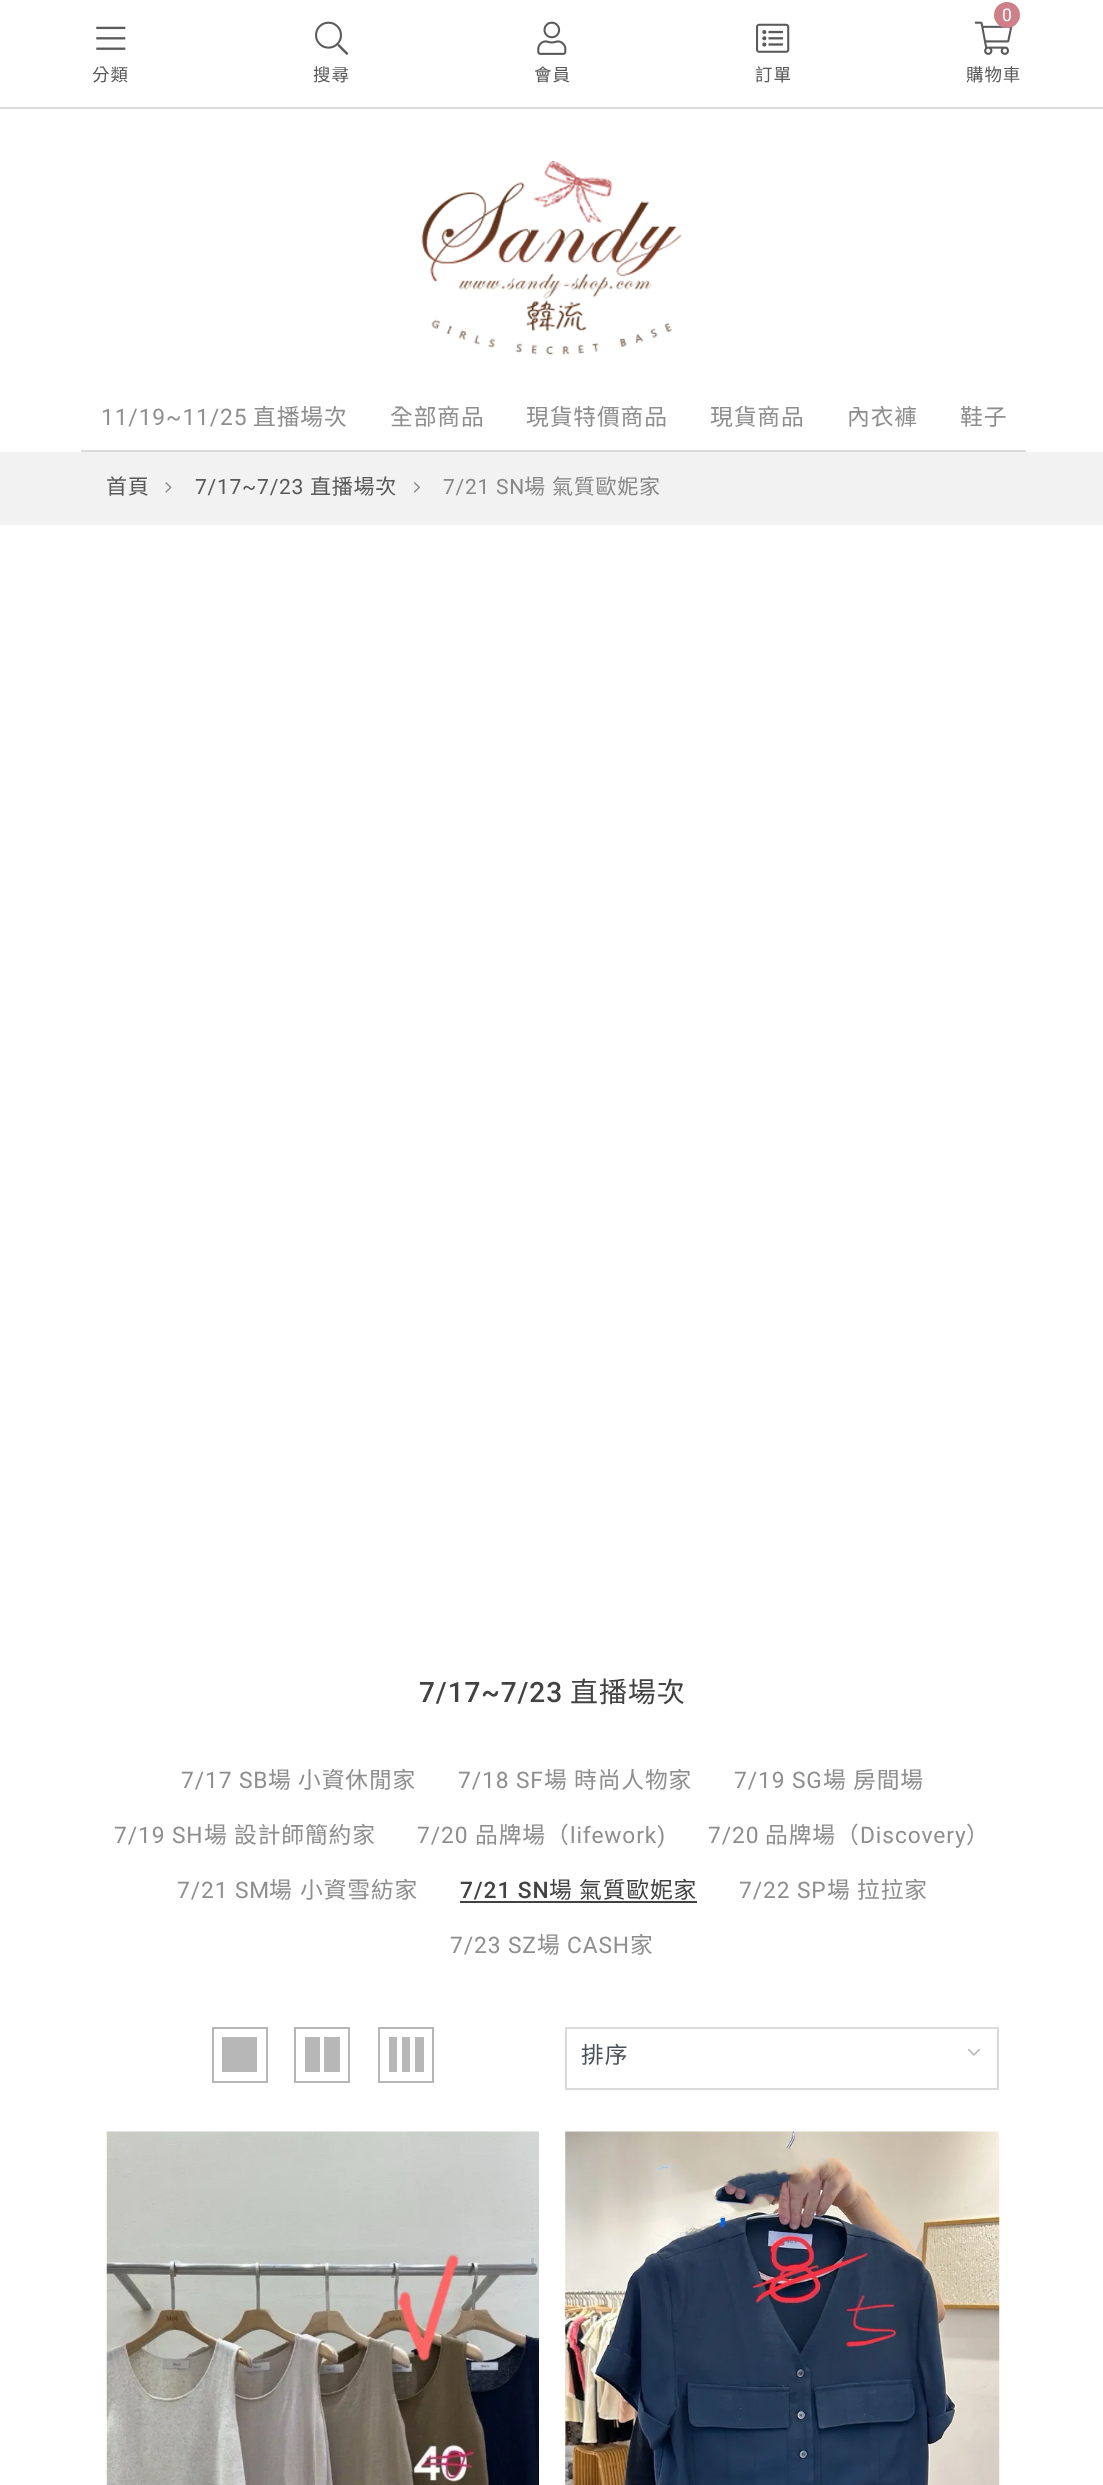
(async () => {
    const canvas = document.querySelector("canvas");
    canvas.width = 1103;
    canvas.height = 2485;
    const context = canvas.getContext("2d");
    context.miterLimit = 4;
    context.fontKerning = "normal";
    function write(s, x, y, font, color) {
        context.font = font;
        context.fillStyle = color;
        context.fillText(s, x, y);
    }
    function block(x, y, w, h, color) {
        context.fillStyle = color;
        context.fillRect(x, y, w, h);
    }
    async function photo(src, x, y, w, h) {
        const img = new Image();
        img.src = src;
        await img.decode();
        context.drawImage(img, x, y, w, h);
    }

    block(0, 0, 1103, 2485, "rgb(255, 255, 255)");
    block(0, 107, 1103, 2, "rgb(219, 219, 219)");
    await photo("media/1.png", 96, 26, 30, 24);
    context.letterSpacing = "0.9px";
    write("分類", 92, 81, "17.5px Noto Sans CJK TC", "rgb(89, 89, 89)");
    await photo("media/2.png", 315, 21, 34, 34);
    write("搜尋", 313, 81, "17.5px Noto Sans CJK TC", "rgb(89, 89, 89)");
    await photo("media/3.png", 537, 21, 30, 34);
    write("會員", 534, 81, "17.5px Noto Sans CJK TC", "rgb(89, 89, 89)");
    await photo("media/4.png", 756, 23, 34, 30);
    write("訂單", 755, 81, "17.5px Noto Sans CJK TC", "rgb(89, 89, 89)");
    await photo("media/5.png", 974, 21, 39, 34);
    context.fillStyle = "rgb(205, 128, 136)";
    context.beginPath();
    context.arc(1007, 15, 13, 0, Math.PI * 2);
    context.fill();
    write("0", 1002, 21, "17.5px Roboto", "rgb(255, 255, 255)");
    write("購物車", 966, 81, "17.5px Noto Sans CJK TC", "rgb(89, 89, 89)");
    await photo("media/6.png", 421, 161, 261, 194);
    block(81, 450, 945, 2, "rgb(219, 219, 219)");
    write("11/19~11/25", 101, 425, "22.75px Roboto", "rgb(142, 142, 142)");
    write("直播場次", 253, 425, "22.75px Noto Sans CJK TC", "rgb(142, 142, 142)");
    write("全部商品", 390, 425, "22.75px Noto Sans CJK TC", "rgb(142, 142, 142)");
    write("現貨特價商品", 526, 425, "22.75px Noto Sans CJK TC", "rgb(142, 142, 142)");
    write("現貨商品", 710, 425, "22.75px Noto Sans CJK TC", "rgb(142, 142, 142)");
    write("內衣褲", 847, 425, "22.75px Noto Sans CJK TC", "rgb(142, 142, 142)");
    write("鞋子", 960, 425, "22.75px Noto Sans CJK TC", "rgb(142, 142, 142)");
    block(0, 452, 1103, 73, "rgb(242, 242, 242)");
    context.letterSpacing = "0.75px";
    write("首頁", 106, 494, "21px Noto Sans CJK TC", "rgb(89, 89, 89)");
    await photo("media/7.png", 165, 482, 7, 11);
    write("7/17~7/23", 195, 494, "21px Roboto", "rgb(89, 89, 89)");
    write("直播場次", 310, 494, "21px Noto Sans CJK TC", "rgb(89, 89, 89)");
    await photo("media/8.png", 413, 482, 7, 11);
    write("7/21 SN", 443, 494, "21px Roboto", "rgb(136, 136, 136)");
    write("場", 524, 494, "21px Noto Sans CJK TC", "rgb(136, 136, 136)");
    write("氣質歐妮家", 552, 494, "21px Noto Sans CJK TC", "rgb(136, 136, 136)");
    context.letterSpacing = "0.9px";
    write("7/17~7/23", 419, 1702, "500 28px Roboto", "rgb(66, 66, 66)");
    write("直播場次", 570, 1702, "28px Noto Sans CJK TC", "rgb(66, 66, 66)");
    write("7/17 SB", 181, 1788, "22.75px Roboto", "rgb(142, 142, 142)");
    write("場", 268, 1788, "22.75px Noto Sans CJK TC", "rgb(142, 142, 142)");
    write("小資休閒家", 298, 1788, "22.75px Noto Sans CJK TC", "rgb(142, 142, 142)");
    write("7/18 SF", 458, 1788, "22.75px Roboto", "rgb(142, 142, 142)");
    write("場", 544, 1788, "22.75px Noto Sans CJK TC", "rgb(142, 142, 142)");
    write("時尚人物家", 574, 1788, "22.75px Noto Sans CJK TC", "rgb(142, 142, 142)");
    write("7/19 SG", 734, 1788, "22.75px Roboto", "rgb(142, 142, 142)");
    write("場", 823, 1788, "22.75px Noto Sans CJK TC", "rgb(142, 142, 142)");
    write("房間場", 853, 1788, "22.75px Noto Sans CJK TC", "rgb(142, 142, 142)");
    write("7/19 SH", 114, 1843, "22.75px Roboto", "rgb(142, 142, 142)");
    write("場", 204, 1843, "22.75px Noto Sans CJK TC", "rgb(142, 142, 142)");
    write("設計師簡約家", 234, 1843, "22.75px Noto Sans CJK TC", "rgb(142, 142, 142)");
    write("7/20", 417, 1843, "22.75px Roboto", "rgb(142, 142, 142)");
    write("品牌場（", 475, 1843, "22.75px Noto Sans CJK TC", "rgb(142, 142, 142)");
    write("lifework)", 570, 1843, "22.75px Roboto", "rgb(142, 142, 142)");
    write("7/20", 708, 1843, "22.75px Roboto", "rgb(142, 142, 142)");
    write("品牌場（", 765, 1843, "22.75px Noto Sans CJK TC", "rgb(142, 142, 142)");
    write("Discovery", 860, 1843, "22.75px Roboto", "rgb(142, 142, 142)");
    write("）", 966, 1843, "22.75px Noto Sans CJK TC", "rgb(142, 142, 142)");
    write("7/21 SM", 177, 1898, "22.75px Roboto", "rgb(142, 142, 142)");
    write("場", 269, 1898, "22.75px Noto Sans CJK TC", "rgb(142, 142, 142)");
    write("小資雪紡家", 300, 1898, "22.75px Noto Sans CJK TC", "rgb(142, 142, 142)");
    write("7/21 SN", 460, 1898, "500 22.75px Roboto", "rgb(66, 66, 66)");
    block(460, 1901, 237, 2, "rgb(66, 66, 66)");
    write("場", 549, 1898, "22.75px Noto Sans CJK TC", "rgb(66, 66, 66)");
    write("氣質歐妮家", 579, 1898, "22.75px Noto Sans CJK TC", "rgb(66, 66, 66)");
    write("7/22 SP", 739, 1898, "22.75px Roboto", "rgb(142, 142, 142)");
    write("場", 827, 1898, "22.75px Noto Sans CJK TC", "rgb(142, 142, 142)");
    write("拉拉家", 857, 1898, "22.75px Noto Sans CJK TC", "rgb(142, 142, 142)");
    write("7/23 SZ", 450, 1953, "22.75px Roboto", "rgb(142, 142, 142)");
    write("場", 537, 1953, "22.75px Noto Sans CJK TC", "rgb(142, 142, 142)");
    write("CASH", 567, 1953, "22.75px Roboto", "rgb(142, 142, 142)");
    write("家", 630, 1953, "22.75px Noto Sans CJK TC", "rgb(142, 142, 142)");
    context.strokeStyle = "rgb(183, 183, 183)";
    context.lineWidth = 2;
    context.strokeRect(213, 2028, 54, 54);
    block(222, 2037, 35, 35, "rgb(183, 183, 183)");
    context.strokeRect(295, 2028, 54, 54);
    block(305, 2037, 15, 35, "rgb(183, 183, 183)");
    block(324, 2037, 16, 35, "rgb(183, 183, 183)");
    context.strokeRect(379, 2028, 54, 54);
    block(389, 2037, 8, 35, "rgb(183, 183, 183)");
    block(402, 2037, 8, 35, "rgb(183, 183, 183)");
    block(415, 2037, 9, 35, "rgb(183, 183, 183)");
    context.strokeStyle = "rgb(219, 219, 219)";
    context.strokeRect(566, 2028, 432, 61);
    write("排序", 581, 2063, "22.75px Noto Sans CJK TC", "rgb(73, 80, 87)");
    await photo("media/9.png", 967, 2048, 13, 8);
    await photo("media/10.png", 106, 2131, 433, 354);
    await photo("media/11.png", 565, 2131, 435, 354);
})();
